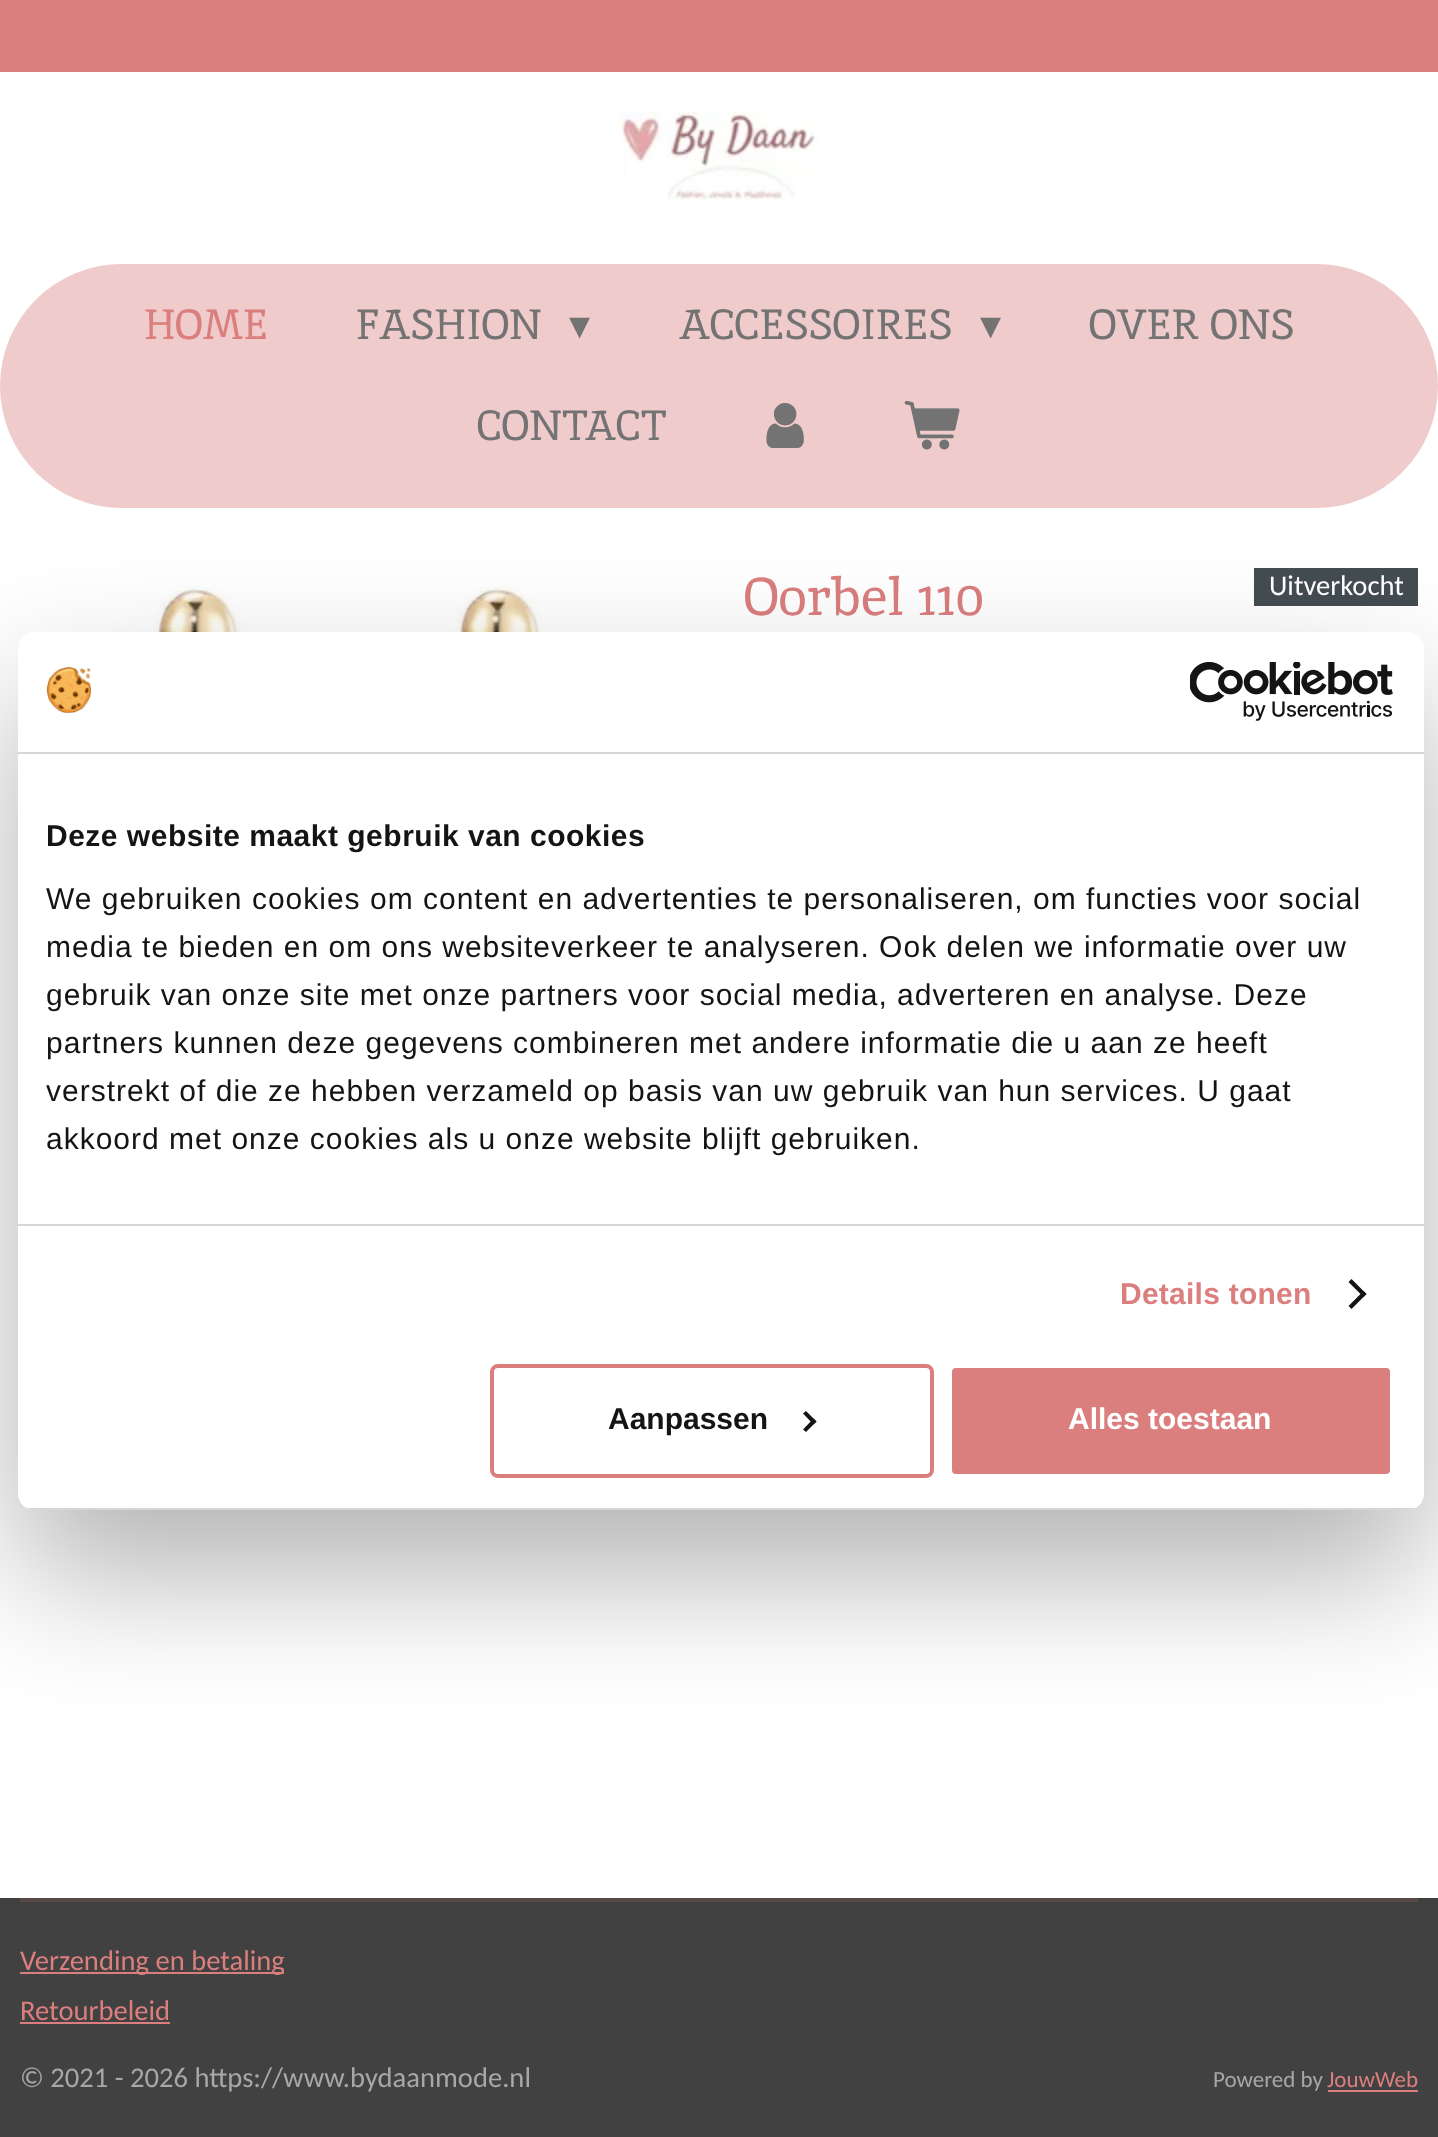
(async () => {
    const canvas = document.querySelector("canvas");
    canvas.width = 1438;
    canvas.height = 2137;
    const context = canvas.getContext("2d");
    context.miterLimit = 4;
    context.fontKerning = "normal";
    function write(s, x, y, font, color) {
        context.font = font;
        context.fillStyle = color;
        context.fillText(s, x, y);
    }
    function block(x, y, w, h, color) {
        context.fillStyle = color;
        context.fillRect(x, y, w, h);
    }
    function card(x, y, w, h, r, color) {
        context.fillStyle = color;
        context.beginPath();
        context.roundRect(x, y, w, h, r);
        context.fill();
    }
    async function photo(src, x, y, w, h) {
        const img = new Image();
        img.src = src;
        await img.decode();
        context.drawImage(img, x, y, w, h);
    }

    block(0, 0, 1438, 2137, "rgb(255, 255, 255)");
    block(0, 0, 1438, 72, "rgb(219, 126, 126)");
    await photo("media/1.png", 620, 112, 198, 88);
    card(0, 264, 1438, 244, 122, "rgb(240, 203, 203)");
    write("HOME", 144, 339, "42px Inika", "rgb(219, 126, 126)");
    write("FASHION", 356, 339, "42px Inika", "rgb(115, 115, 115)");
    write("▾", 569, 339, "42px DejaVu Sans", "rgb(115, 115, 115)");
    write("ACCESSOIRES", 679, 339, "42px Inika", "rgb(115, 115, 115)");
    write("▾", 980, 339, "42px DejaVu Sans", "rgb(115, 115, 115)");
    write("OVER ONS", 1089, 339, "42px Inika", "rgb(115, 115, 115)");
    write("CONTACT", 477, 440, "42px Inika", "rgb(115, 115, 115)");
    await photo("media/2.png", 766, 403, 38, 45);
    await photo("media/3.png", 904, 400, 56, 50);
    await photo("media/4.png", 68, 586, 568, 46);
    write("Oorbel 110", 744, 615, "53px Inika", "rgb(219, 126, 126)");
    block(1254, 568, 164, 38, "rgb(66, 76, 81)");
    write("Uitverkocht", 1269, 595, "28.6px Carlito", "rgb(255, 255, 255)");
    block(0, 1898, 1438, 239, "rgb(66, 65, 65)");
    block(20, 1898, 1398, 4, "rgb(89, 74, 74)");
    block(20, 1972, 264, 2, "rgb(219, 126, 126)");
    write("Verzending en betaling", 20, 1970, "28.6px Carlito", "rgb(219, 126, 126)");
    write("Retourbeleid", 20, 2020, "28.6px Carlito", "rgb(219, 126, 126)");
    block(20, 2022, 150, 2, "rgb(219, 126, 126)");
    write("© 2021 - 2026 https://www.bydaanmode.nl", 20, 2087, "28.6px Carlito", "rgb(168, 167, 167)");
    write("Powered by", 1213, 2087, "23px Carlito", "rgb(168, 167, 167)");
    write("JouwWeb", 1327, 2087, "23px Carlito", "rgb(219, 126, 126)");
    block(1328, 2090, 90, 2, "rgb(219, 126, 126)");
    context.fillStyle = "rgba(0, 0, 0, 0.3)";
    context.filter = "blur(68px)";
    context.beginPath();
    context.roundRect(18, 696, 1406, 878, 16);
    context.fill();
    context.filter = "none";
    card(18, 632, 1406, 878, 16, "rgb(255, 255, 255)");
    block(18, 752, 1406, 2, "rgb(214, 214, 214)");
    await photo("media/5.png", 46, 667, 45, 46);
    await photo("media/6.png", 1190, 662, 203, 59);
    block(18, 1224, 1406, 2, "rgb(214, 214, 214)");
    context.letterSpacing = "0.5px";
    write("Deze website maakt gebruik van cookies", 46, 846, "bold 30px Liberation Sans", "rgb(20, 20, 20)");
    context.letterSpacing = "1px";
    write("We gebruiken cookies om content en advertenties te personaliseren, om functies voor social", 46, 909, "30px Liberation Sans", "rgb(20, 20, 20)");
    write("media te bieden en om ons websiteverkeer te analyseren. Ook delen we informatie over uw", 46, 957, "30px Liberation Sans", "rgb(20, 20, 20)");
    write("gebruik van onze site met onze partners voor social media, adverteren en analyse. Deze", 46, 1005, "30px Liberation Sans", "rgb(20, 20, 20)");
    write("partners kunnen deze gegevens combineren met andere informatie die u aan ze heeft", 46, 1053, "30px Liberation Sans", "rgb(20, 20, 20)");
    write("verstrekt of die ze hebben verzameld op basis van uw gebruik van hun services. U gaat", 46, 1101, "30px Liberation Sans", "rgb(20, 20, 20)");
    write("akkoord met onze cookies als u onze website blijft gebruiken.", 46, 1149, "30px Liberation Sans", "rgb(20, 20, 20)");
    context.letterSpacing = "0.25px";
    write("Details tonen", 1120, 1304, "bold 30px Liberation Sans", "rgb(219, 126, 126)");
    context.fillStyle = "rgb(20, 20, 20)";
    context.beginPath();
    context.moveTo(1351.5, 1279);
    context.lineTo(1366.5, 1294);
    context.lineTo(1363.5, 1297);
    context.lineTo(1348.5, 1282);
    context.closePath();
    context.fill();
    context.beginPath();
    context.moveTo(1363.5, 1291);
    context.lineTo(1366.5, 1294);
    context.lineTo(1351.5, 1309);
    context.lineTo(1348.5, 1306);
    context.closePath();
    context.fill();
    context.save();
    context.beginPath();
    context.roundRect(18, 632, 1406, 878, 16);
    context.clip();
    block(18, 1508, 1406, 2, "rgb(214, 214, 214)");
    context.restore();
    context.beginPath();
    context.roundRect(492, 1366, 440, 110, 6);
    context.strokeStyle = "rgb(219, 126, 126)";
    context.lineWidth = 4;
    context.stroke();
    context.letterSpacing = "0px";
    write("Aanpassen", 608, 1429, "bold 30px Liberation Sans", "rgb(20, 20, 20)");
    context.beginPath();
    context.moveTo(806, 1411);
    context.lineTo(816.5, 1421.5);
    context.lineTo(813.5, 1424.5);
    context.lineTo(803, 1413.5);
    context.closePath();
    context.fill();
    context.beginPath();
    context.moveTo(813.5, 1418.5);
    context.lineTo(816.5, 1421.5);
    context.lineTo(806, 1432);
    context.lineTo(803, 1429.5);
    context.closePath();
    context.fill();
    context.fillStyle = "rgb(219, 126, 126)";
    context.beginPath();
    context.roundRect(950, 1366, 442, 110, 6);
    context.fill();
    context.strokeStyle = "rgb(255, 255, 255)";
    context.stroke();
    write("Alles toestaan", 1068, 1429, "bold 30px Liberation Sans", "rgb(255, 255, 255)");
})();
